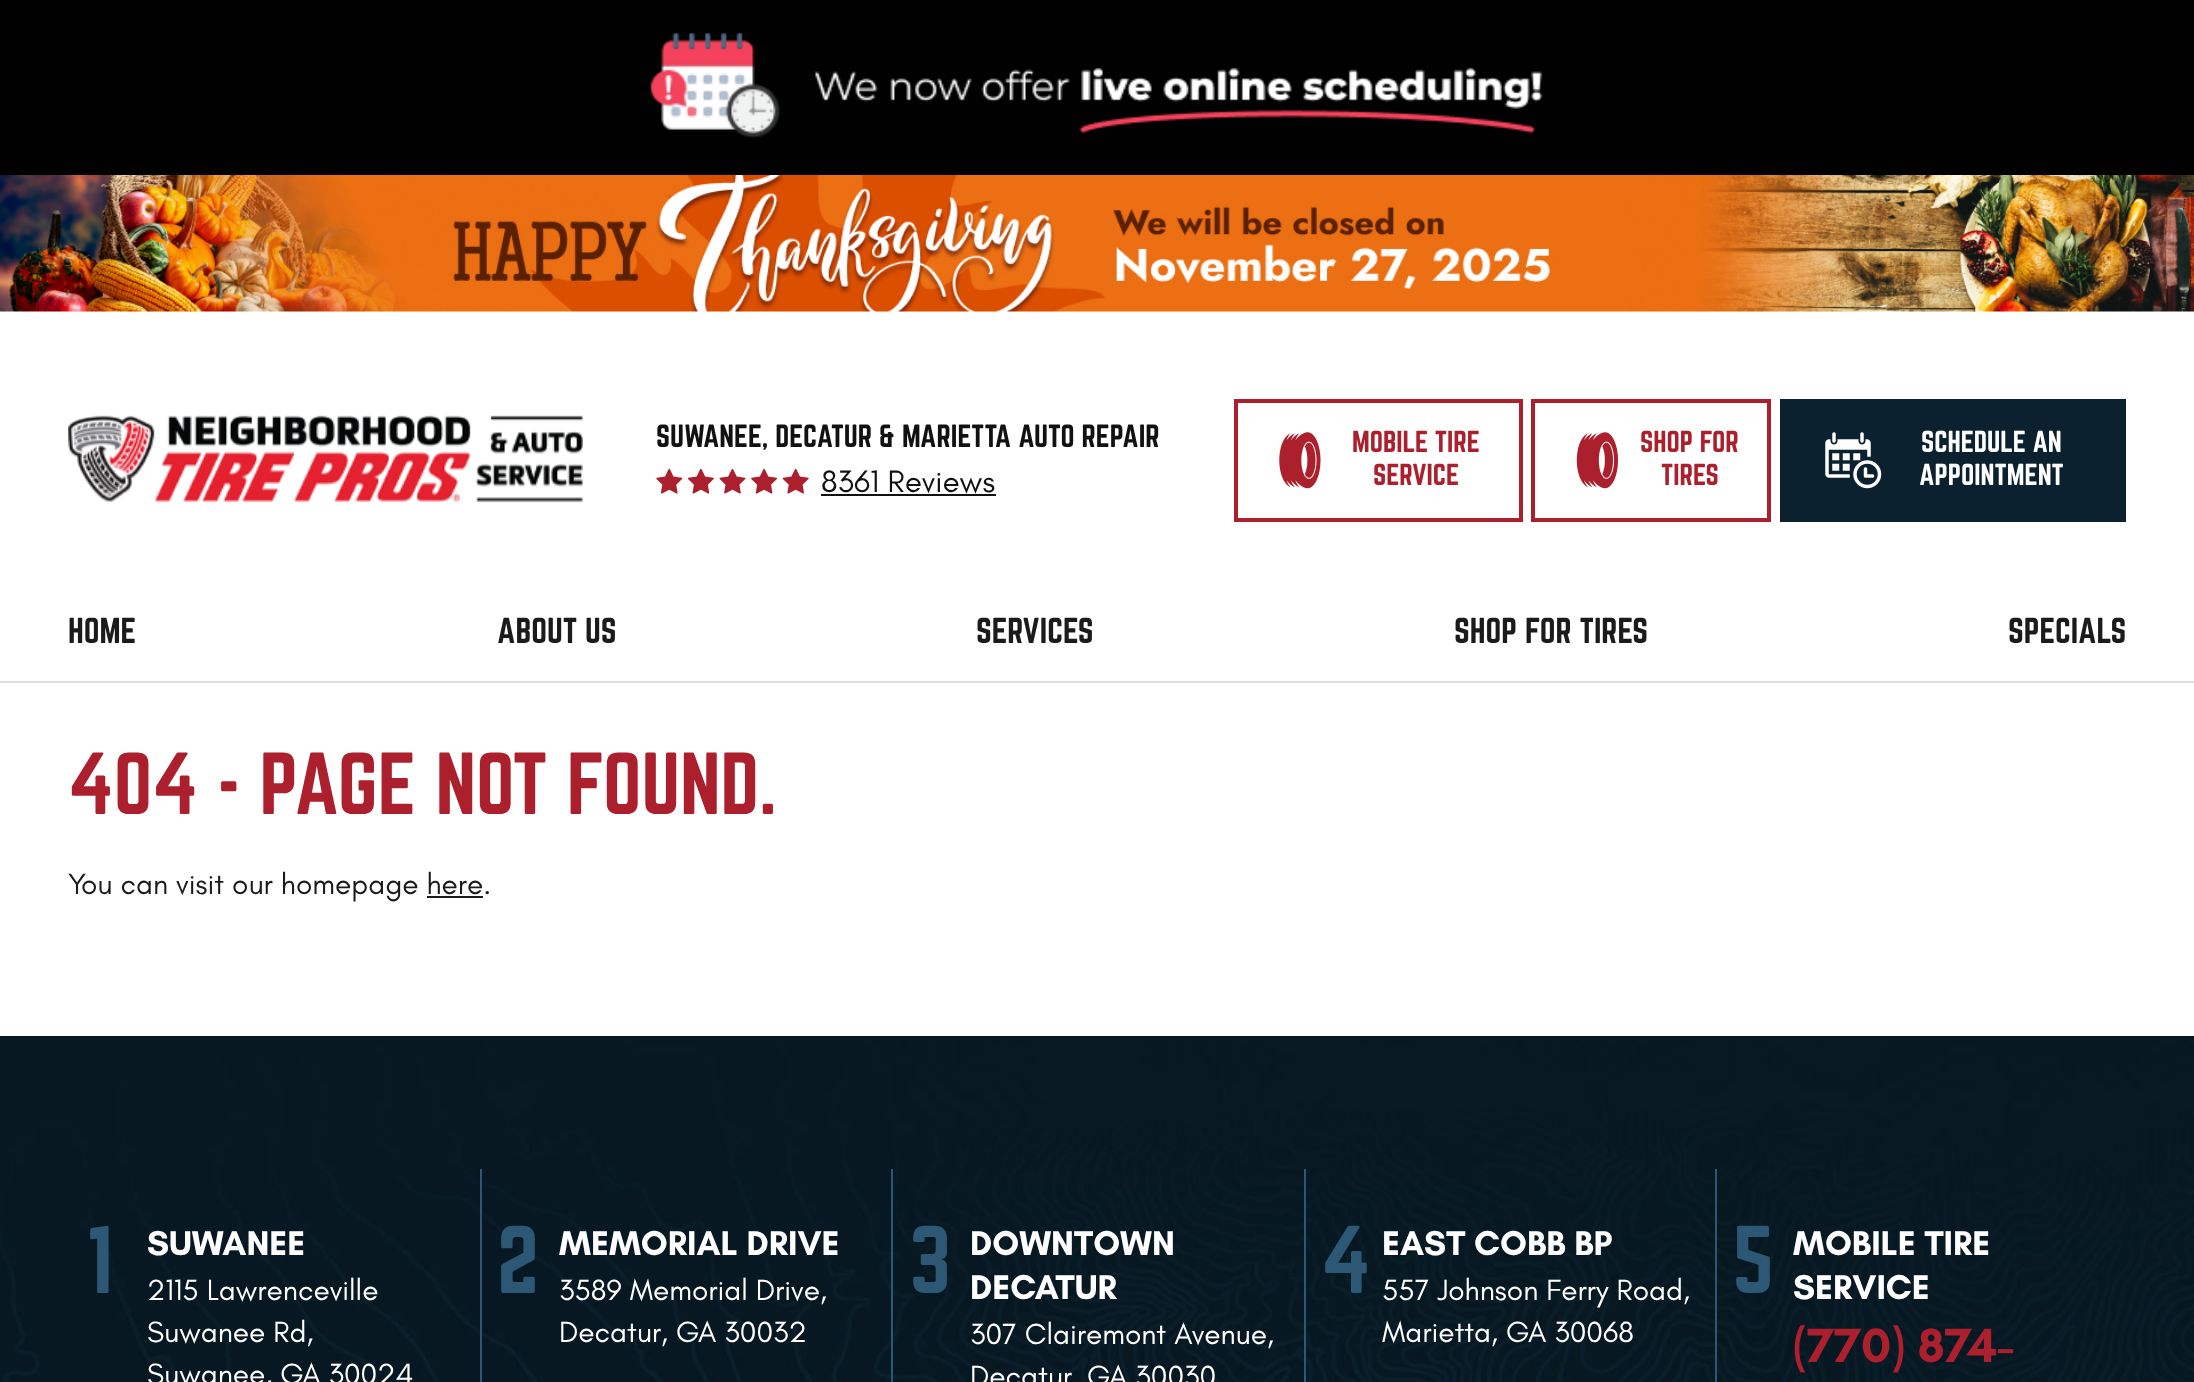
(async () => {
    const canvas = document.querySelector("canvas");
    canvas.width = 2194;
    canvas.height = 1382;
    const context = canvas.getContext("2d");
    context.miterLimit = 4;
    context.fontKerning = "normal";
    function write(s, x, y, font, color) {
        context.font = font;
        context.fillStyle = color;
        context.fillText(s, x, y);
    }
    function block(x, y, w, h, color) {
        context.fillStyle = color;
        context.fillRect(x, y, w, h);
    }
    async function photo(src, x, y, w, h) {
        const img = new Image();
        img.src = src;
        await img.decode();
        context.drawImage(img, x, y, w, h);
    }

    block(0, 0, 2194, 1382, "rgb(255, 255, 255)");
    block(0, 0, 2194, 175, "rgb(1, 1, 1)");
    await photo("media/1.png", 650, 32, 893, 106);
    await photo("media/2.png", 0, 175, 2194, 137);
    block(0, 681, 2194, 2, "rgb(223, 223, 223)");
    await photo("media/3.png", 68, 415, 515, 88);
    write("SUWANEE, DECATUR & MARIETTA AUTO REPAIR", 656, 447, "28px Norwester", "rgb(17, 17, 17)");
    await photo("media/4.png", 656, 468, 153, 26);
    write("8361 Reviews", 821, 492, "31.5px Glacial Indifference", "rgb(17, 17, 17)");
    block(821, 494, 175, 2, "rgb(17, 17, 17)");
    context.strokeStyle = "rgb(172, 31, 45)";
    context.lineWidth = 4;
    context.strokeRect(1236, 401, 285, 119);
    await photo("media/5.png", 1279, 432, 42, 57);
    write("MOBILE TIRE", 1352, 452, "26.5px Norwester", "rgb(172, 31, 45)");
    write("SERVICE", 1373, 485, "26.5px Norwester", "rgb(172, 31, 45)");
    context.strokeRect(1533, 401, 236, 119);
    await photo("media/6.png", 1576, 432, 43, 57);
    write("SHOP FOR", 1640, 452, "26.5px Norwester", "rgb(172, 31, 45)");
    write("TIRES", 1661, 485, "26.5px Norwester", "rgb(172, 31, 45)");
    block(1780, 399, 346, 123, "rgb(11, 33, 47)");
    await photo("media/7.png", 1825, 432, 57, 57);
    write("SCHEDULE AN", 1921, 452, "26.5px Norwester", "rgb(255, 255, 255)");
    write("APPOINTMENT", 1919, 485, "26.5px Norwester", "rgb(255, 255, 255)");
    write("HOME", 68, 643, "31.5px Norwester", "rgb(27, 27, 27)");
    write("ABOUT US", 497, 643, "31.5px Norwester", "rgb(27, 27, 27)");
    write("SERVICES", 976, 643, "31.5px Norwester", "rgb(27, 27, 27)");
    write("SHOP FOR TIRES", 1454, 643, "31.5px Norwester", "rgb(27, 27, 27)");
    write("SPECIALS", 2008, 643, "31.5px Norwester", "rgb(27, 27, 27)");
    write("404 - PAGE NOT FOUND.", 68, 814, "77px Norwester", "rgb(172, 31, 45)");
    write("You can visit our homepage here.", 68, 894, "29.75px Glacial Indifference", "rgb(27, 27, 27)");
    block(427, 896, 56, 2, "rgb(27, 27, 27)");
    await photo("media/8.png", 0, 1036, 2194, 346);
    write("1", 86, 1293, "84px Norwester", "rgb(44, 88, 117)");
    write("SUWANEE", 147, 1255, "bold 35px Glacial Indifference", "rgb(255, 255, 255)");
    write("2115 Lawrenceville", 147, 1300, "29.75px Glacial Indifference", "rgb(255, 255, 255)");
    write("Suwanee Rd,", 147, 1342, "29.75px Glacial Indifference", "rgb(255, 255, 255)");
    write("Suwanee, GA 30024", 147, 1384, "29.75px Glacial Indifference", "rgb(255, 255, 255)");
    block(480, 1169, 2, 213, "rgb(44, 88, 117)");
    write("2", 497, 1293, "84px Norwester", "rgb(44, 88, 117)");
    write("MEMORIAL DRIVE", 559, 1255, "bold 35px Glacial Indifference", "rgb(255, 255, 255)");
    write("3589 Memorial Drive,", 559, 1300, "29.75px Glacial Indifference", "rgb(255, 255, 255)");
    write("Decatur, GA 30032", 559, 1342, "29.75px Glacial Indifference", "rgb(255, 255, 255)");
    block(891, 1169, 2, 213, "rgb(44, 88, 117)");
    write("3", 909, 1293, "84px Norwester", "rgb(44, 88, 117)");
    write("DOWNTOWN", 970, 1255, "bold 35px Glacial Indifference", "rgb(255, 255, 255)");
    write("DECATUR", 970, 1299, "bold 35px Glacial Indifference", "rgb(255, 255, 255)");
    write("307 Clairemont Avenue,", 970, 1344, "29.75px Glacial Indifference", "rgb(255, 255, 255)");
    write("Decatur, GA 30030", 970, 1386, "29.75px Glacial Indifference", "rgb(255, 255, 255)");
    block(1304, 1169, 2, 213, "rgb(44, 88, 117)");
    write("4", 1321, 1293, "84px Norwester", "rgb(44, 88, 117)");
    write("EAST COBB BP", 1382, 1255, "bold 35px Glacial Indifference", "rgb(255, 255, 255)");
    write("557 Johnson Ferry Road,", 1382, 1300, "29.75px Glacial Indifference", "rgb(255, 255, 255)");
    write("Marietta, GA 30068", 1382, 1342, "29.75px Glacial Indifference", "rgb(255, 255, 255)");
    block(1715, 1169, 2, 213, "rgb(44, 88, 117)");
    write("5", 1732, 1293, "84px Norwester", "rgb(44, 88, 117)");
    write("MOBILE TIRE", 1793, 1255, "bold 35px Glacial Indifference", "rgb(255, 255, 255)");
    write("SERVICE", 1793, 1299, "bold 35px Glacial Indifference", "rgb(255, 255, 255)");
    write("(770) 874-", 1793, 1362, "bold 49px Glacial Indifference", "rgb(172, 31, 45)");
})();
